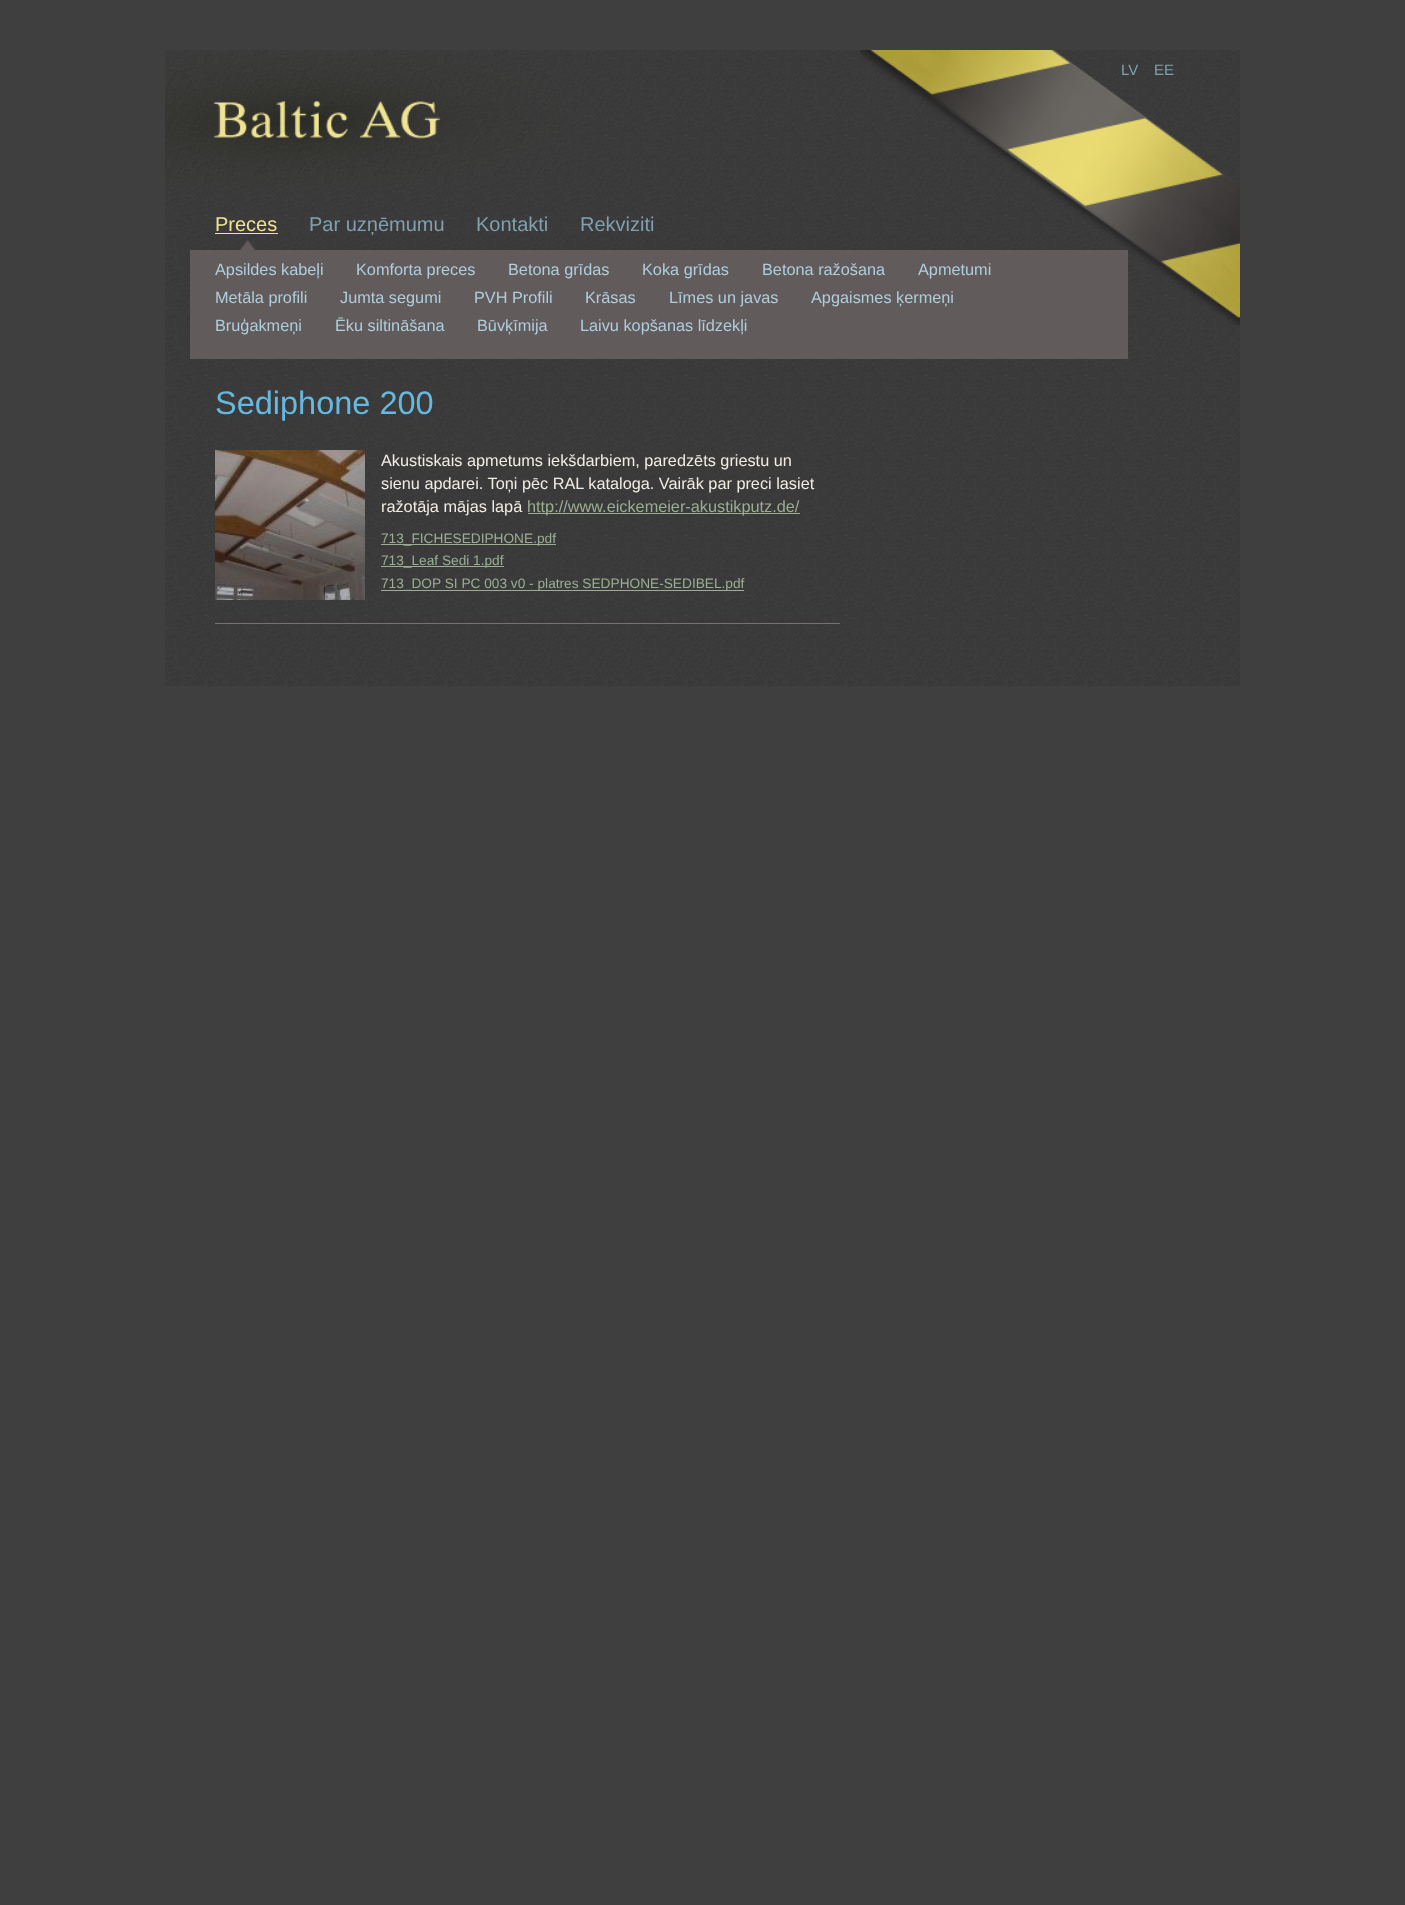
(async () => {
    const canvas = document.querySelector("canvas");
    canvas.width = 1405;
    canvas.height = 1905;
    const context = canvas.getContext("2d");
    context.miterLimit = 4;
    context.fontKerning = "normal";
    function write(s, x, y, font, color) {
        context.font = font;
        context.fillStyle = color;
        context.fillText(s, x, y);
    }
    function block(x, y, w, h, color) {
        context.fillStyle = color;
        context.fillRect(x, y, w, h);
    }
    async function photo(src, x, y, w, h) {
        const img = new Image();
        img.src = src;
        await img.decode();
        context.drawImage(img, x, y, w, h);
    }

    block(0, 0, 1405, 1905, "rgb(63, 63, 63)");
    await photo("media/1.png", 165, 50, 1075, 636);
    await photo("media/2.png", 860, 50, 380, 275);
    await photo("media/3.png", 165, 50, 421, 138);
    write("LV", 1121, 75, "15px Liberation Sans", "rgb(128, 160, 175)");
    write("EE", 1154, 75, "15px Liberation Sans", "rgb(128, 160, 175)");
    await photo("media/4.png", 240, 240, 15, 10);
    write("Preces", 215, 231, "20px Liberation Sans", "rgb(239, 227, 148)");
    block(215, 233, 63, 1, "rgb(239, 227, 148)");
    write("Par uzņēmumu", 309, 231, "20px Liberation Sans", "rgb(128, 160, 175)");
    write("Kontakti", 476, 231, "20px Liberation Sans", "rgb(128, 160, 175)");
    write("Rekviziti", 580, 231, "20px Liberation Sans", "rgb(128, 160, 175)");
    block(190, 250, 938, 109, "rgb(98, 91, 91)");
    write("Apsildes kabeļi", 215, 275, "16.3px Liberation Sans", "rgb(174, 206, 221)");
    write("Komforta preces", 356, 275, "16.3px Liberation Sans", "rgb(174, 206, 221)");
    write("Betona grīdas", 508, 275, "16.3px Liberation Sans", "rgb(174, 206, 221)");
    write("Koka grīdas", 642, 275, "16.3px Liberation Sans", "rgb(174, 206, 221)");
    write("Betona ražošana", 762, 275, "16.3px Liberation Sans", "rgb(174, 206, 221)");
    write("Apmetumi", 918, 275, "16.3px Liberation Sans", "rgb(174, 206, 221)");
    write("Metāla profili", 215, 303, "16.3px Liberation Sans", "rgb(174, 206, 221)");
    write("Jumta segumi", 340, 303, "16.3px Liberation Sans", "rgb(174, 206, 221)");
    write("PVH Profili", 474, 303, "16.3px Liberation Sans", "rgb(174, 206, 221)");
    write("Krāsas", 585, 303, "16.3px Liberation Sans", "rgb(174, 206, 221)");
    write("Līmes un javas", 669, 303, "16.3px Liberation Sans", "rgb(174, 206, 221)");
    write("Apgaismes ķermeņi", 811, 303, "16.3px Liberation Sans", "rgb(174, 206, 221)");
    write("Bruģakmeņi", 215, 331, "16.3px Liberation Sans", "rgb(174, 206, 221)");
    write("Ēku siltināšana", 335, 331, "16.3px Liberation Sans", "rgb(174, 206, 221)");
    write("Būvķīmija", 477, 331, "16.3px Liberation Sans", "rgb(174, 206, 221)");
    write("Laivu kopšanas līdzekļi", 580, 331, "16.3px Liberation Sans", "rgb(174, 206, 221)");
    block(215, 623, 625, 1, "rgb(123, 112, 111)");
    write("Sediphone 200", 215, 414, "32.5px Liberation Sans", "rgb(103, 184, 222)");
    await photo("media/5.png", 215, 450, 150, 150);
    write("Akustiskais apmetums iekšdarbiem, paredzēts griestu un", 381, 466, "16.3px Liberation Sans", "rgb(242, 237, 228)");
    write("sienu apdarei. Toņi pēc RAL kataloga. Vairāk par preci lasiet", 381, 489, "16.3px Liberation Sans", "rgb(242, 237, 228)");
    write("ražotāja mājas lapā", 381, 512, "16.3px Liberation Sans", "rgb(242, 237, 228)");
    block(528, 513, 272, 1, "rgb(155, 174, 147)");
    write("http://www.eickemeier-akustikputz.de/", 527, 512, "16.3px Liberation Sans", "rgb(155, 174, 147)");
    block(381, 544, 175, 1, "rgb(155, 174, 147)");
    write("713_FICHESEDIPHONE.pdf", 381, 543, "13.7px Liberation Sans", "rgb(155, 174, 147)");
    block(381, 566, 123, 1, "rgb(155, 174, 147)");
    write("713_Leaf Sedi 1.pdf", 381, 565, "13.7px Liberation Sans", "rgb(155, 174, 147)");
    block(381, 590, 363, 1, "rgb(155, 174, 147)");
    write("713_DOP SI PC 003 v0 - platres SEDPHONE-SEDIBEL.pdf", 381, 588, "13.7px Liberation Sans", "rgb(155, 174, 147)");
})();
